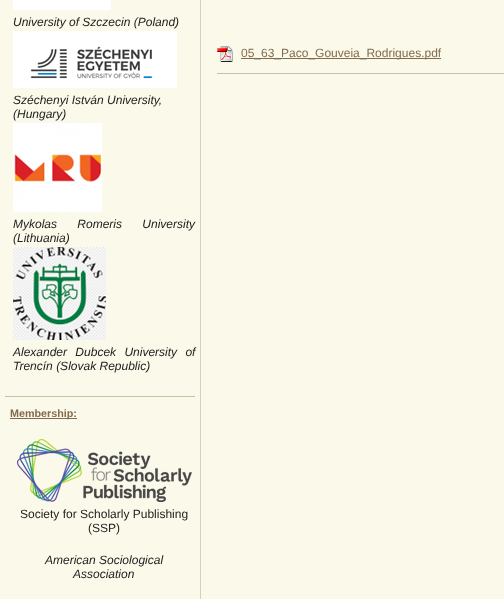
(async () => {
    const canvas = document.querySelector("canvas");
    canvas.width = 504;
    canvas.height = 599;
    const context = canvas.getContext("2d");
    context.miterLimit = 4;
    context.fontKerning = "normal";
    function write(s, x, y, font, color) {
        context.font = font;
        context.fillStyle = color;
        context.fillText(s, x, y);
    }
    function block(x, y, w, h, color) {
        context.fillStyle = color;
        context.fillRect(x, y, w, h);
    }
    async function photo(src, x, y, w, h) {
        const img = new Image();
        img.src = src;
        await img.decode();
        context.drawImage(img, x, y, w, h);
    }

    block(0, 0, 504, 599, "rgb(255, 255, 255)");
    await photo("media/1.png", 0, 0, 504, 599);
    block(5, 396, 190, 1, "rgb(202, 191, 165)");
    block(13, 0, 98, 10, "rgb(255, 255, 255)");
    write("University of Szczecin (Poland)", 13, 26, "italic 12px Liberation Sans", "rgb(34, 34, 34)");
    await photo("media/2.png", 13, 31, 164, 57);
    write("Széchenyi István University,", 13, 104, "italic 12px Liberation Sans", "rgb(34, 34, 34)");
    write("(Hungary)", 13, 118, "italic 12px Liberation Sans", "rgb(34, 34, 34)");
    await photo("media/3.png", 13, 123, 89, 89);
    context.wordSpacing = "17px";
    write("Mykolas Romeris University", 13, 228, "italic 12px Liberation Sans", "rgb(34, 34, 34)");
    context.wordSpacing = "0px";
    write("(Lithuania)", 13, 242, "italic 12px Liberation Sans", "rgb(34, 34, 34)");
    await photo("media/4.png", 13, 247, 93, 93);
    context.wordSpacing = "5px";
    write("Alexander Dubcek University of", 13, 356, "italic 12px Liberation Sans", "rgb(34, 34, 34)");
    context.wordSpacing = "0px";
    write("Trencín (Slovak Republic)", 13, 370, "italic 12px Liberation Sans", "rgb(34, 34, 34)");
    block(10, 418, 67, 1, "rgb(131, 107, 76)");
    write("Membership:", 10, 417, "bold 10.75px Liberation Sans", "rgb(131, 107, 76)");
    await photo("media/5.png", 17, 439, 175, 63);
    write("Society for Scholarly Publishing", 20, 518, "12px Liberation Sans", "rgb(34, 34, 34)");
    write("(SSP)", 88, 532, "12px Liberation Sans", "rgb(34, 34, 34)");
    write("American Sociological", 45, 564, "italic 12px Liberation Sans", "rgb(34, 34, 34)");
    write("Association", 73, 578, "italic 12px Liberation Sans", "rgb(34, 34, 34)");
    block(217, 73, 287, 1, "rgb(202, 191, 165)");
    await photo("media/6.png", 217, 46, 16, 16);
    block(241, 58, 200, 1, "rgb(131, 107, 76)");
    write("05_63_Paco_Gouveia_Rodrigues.pdf", 241, 57, "12px Liberation Sans", "rgb(131, 107, 76)");
})();
